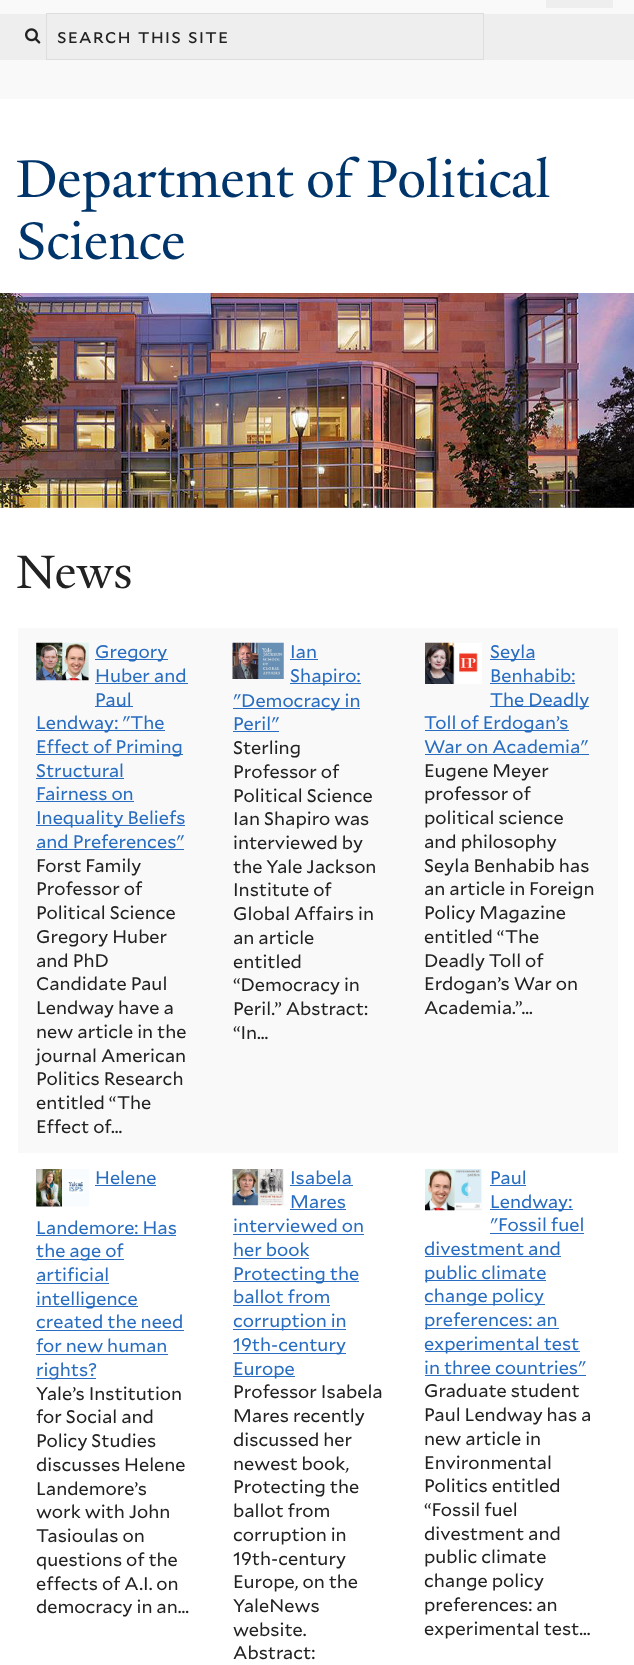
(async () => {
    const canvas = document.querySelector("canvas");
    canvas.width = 634;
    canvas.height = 1665;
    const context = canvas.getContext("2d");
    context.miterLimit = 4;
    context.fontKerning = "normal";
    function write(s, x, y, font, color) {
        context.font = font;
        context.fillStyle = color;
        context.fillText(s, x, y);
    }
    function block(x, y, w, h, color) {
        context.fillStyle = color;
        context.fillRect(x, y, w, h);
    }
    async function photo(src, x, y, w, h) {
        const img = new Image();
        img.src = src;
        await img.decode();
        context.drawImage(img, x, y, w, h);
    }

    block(0, 0, 634, 1665, "rgb(255, 255, 255)");
    block(0, 0, 634, 99, "rgb(249, 249, 249)");
    block(546, 0, 67, 8, "rgb(238, 238, 238)");
    block(0, 14, 634, 46, "rgb(238, 238, 238)");
    await photo("media/1.png", 25, 28, 16, 16);
    context.strokeStyle = "rgb(221, 221, 221)";
    context.strokeRect(46.5, 13.5, 437, 46);
    context.letterSpacing = "1px";
    context.wordSpacing = "1px";
    write("search this site", 57, 43, "19.5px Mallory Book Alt", "rgb(34, 34, 34)");
    context.letterSpacing = "0px";
    context.wordSpacing = "0px";
    write("Department of Political", 16, 197, "57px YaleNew", "rgb(0, 53, 107)");
    write("Science", 16, 259, "57px YaleNew", "rgb(0, 53, 107)");
    await photo("media/2.png", 0, 293, 634, 215);
    write("News", 16, 588, "51px YaleNew", "rgb(34, 34, 34)");
    block(18, 628, 600, 525, "rgb(249, 249, 249)");
    await photo("media/3.png", 36, 642, 53, 39);
    block(95, 659, 73, 1, "rgb(40, 109, 192)");
    write("Gregory", 95, 658, "18.25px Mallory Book", "rgb(40, 109, 192)");
    write("Huber and", 95, 682, "18.25px Mallory Book", "rgb(40, 109, 192)");
    block(95, 683, 93, 1, "rgb(40, 109, 192)");
    block(95, 706, 38, 1, "rgb(40, 109, 192)");
    write("Paul", 95, 706, "18.25px Mallory Book", "rgb(40, 109, 192)");
    block(36, 730, 129, 1, "rgb(40, 109, 192)");
    write("Lendway: \"The", 36, 729, "18.25px Mallory Book", "rgb(40, 109, 192)");
    block(36, 754, 147, 1, "rgb(40, 109, 192)");
    write("Effect of Priming", 36, 753, "18.25px Mallory Book", "rgb(40, 109, 192)");
    write("Structural", 36, 777, "18.25px Mallory Book", "rgb(40, 109, 192)");
    block(36, 778, 88, 1, "rgb(40, 109, 192)");
    write("Fairness on", 36, 800, "18.25px Mallory Book", "rgb(40, 109, 192)");
    block(36, 801, 98, 1, "rgb(40, 109, 192)");
    block(36, 825, 149, 1, "rgb(40, 109, 192)");
    write("Inequality Beliefs", 36, 824, "18.25px Mallory Book", "rgb(40, 109, 192)");
    write("and Preferences\"", 36, 848, "18.25px Mallory Book", "rgb(40, 109, 192)");
    block(36, 849, 148, 1, "rgb(40, 109, 192)");
    write("Forst Family", 36, 872, "18.25px Mallory Book", "rgb(34, 34, 34)");
    write("Professor of", 36, 895, "18.25px Mallory Book", "rgb(34, 34, 34)");
    write("Political Science", 36, 919, "18.25px Mallory Book", "rgb(34, 34, 34)");
    write("Gregory Huber", 36, 943, "18.25px Mallory Book", "rgb(34, 34, 34)");
    write("and PhD", 36, 967, "18.25px Mallory Book", "rgb(34, 34, 34)");
    write("Candidate Paul", 36, 990, "18.25px Mallory Book", "rgb(34, 34, 34)");
    write("Lendway have a", 36, 1014, "18.25px Mallory Book", "rgb(34, 34, 34)");
    write("new article in the", 36, 1038, "18.25px Mallory Book", "rgb(34, 34, 34)");
    write("journal American", 36, 1062, "18.25px Mallory Book", "rgb(34, 34, 34)");
    write("Politics Research", 36, 1085, "18.25px Mallory Book", "rgb(34, 34, 34)");
    write("entitled “The", 36, 1109, "18.25px Mallory Book", "rgb(34, 34, 34)");
    write("Effect of...", 36, 1133, "18.25px Mallory Book", "rgb(34, 34, 34)");
    await photo("media/4.png", 232, 642, 52, 37);
    write("Ian", 290, 658, "18.25px Mallory Book", "rgb(40, 109, 192)");
    block(290, 659, 28, 1, "rgb(40, 109, 192)");
    block(290, 683, 71, 1, "rgb(40, 109, 192)");
    write("Shapiro:", 290, 682, "18.25px Mallory Book", "rgb(40, 109, 192)");
    block(233, 708, 127, 1, "rgb(40, 109, 192)");
    write("\"Democracy in", 233, 707, "18.25px Mallory Book", "rgb(40, 109, 192)");
    write("Peril\"", 233, 730, "18.25px Mallory Book", "rgb(40, 109, 192)");
    block(233, 731, 46, 1, "rgb(40, 109, 192)");
    write("Sterling", 233, 754, "18.25px Mallory Book", "rgb(34, 34, 34)");
    write("Professor of", 233, 778, "18.25px Mallory Book", "rgb(34, 34, 34)");
    write("Political Science", 233, 802, "18.25px Mallory Book", "rgb(34, 34, 34)");
    write("Ian Shapiro was", 233, 825, "18.25px Mallory Book", "rgb(34, 34, 34)");
    write("interviewed by", 233, 849, "18.25px Mallory Book", "rgb(34, 34, 34)");
    write("the Yale Jackson", 233, 873, "18.25px Mallory Book", "rgb(34, 34, 34)");
    write("Institute of", 233, 896, "18.25px Mallory Book", "rgb(34, 34, 34)");
    write("Global Affairs in", 233, 920, "18.25px Mallory Book", "rgb(34, 34, 34)");
    write("an article", 233, 944, "18.25px Mallory Book", "rgb(34, 34, 34)");
    write("entitled", 233, 968, "18.25px Mallory Book", "rgb(34, 34, 34)");
    write("“Democracy in", 233, 991, "18.25px Mallory Book", "rgb(34, 34, 34)");
    write("Peril.” Abstract:", 233, 1015, "18.25px Mallory Book", "rgb(34, 34, 34)");
    write("“In...", 233, 1039, "18.25px Mallory Book", "rgb(34, 34, 34)");
    await photo("media/5.png", 425, 642, 57, 42);
    block(490, 659, 45, 1, "rgb(40, 109, 192)");
    write("Seyla", 490, 658, "18.25px Mallory Book", "rgb(40, 109, 192)");
    write("Benhabib:", 490, 682, "18.25px Mallory Book", "rgb(40, 109, 192)");
    block(490, 683, 85, 1, "rgb(40, 109, 192)");
    block(490, 706, 99, 1, "rgb(40, 109, 192)");
    write("The Deadly", 490, 706, "18.25px Mallory Book", "rgb(40, 109, 192)");
    block(425, 730, 144, 1, "rgb(40, 109, 192)");
    write("Toll of Erdogan’s", 424, 729, "18.25px Mallory Book", "rgb(40, 109, 192)");
    write("War on Academia\"", 424, 753, "18.25px Mallory Book", "rgb(40, 109, 192)");
    block(425, 754, 164, 1, "rgb(40, 109, 192)");
    write("Eugene Meyer", 424, 777, "18.25px Mallory Book", "rgb(34, 34, 34)");
    write("professor of", 424, 800, "18.25px Mallory Book", "rgb(34, 34, 34)");
    write("political science", 424, 824, "18.25px Mallory Book", "rgb(34, 34, 34)");
    write("and philosophy", 424, 848, "18.25px Mallory Book", "rgb(34, 34, 34)");
    write("Seyla Benhabib has", 424, 872, "18.25px Mallory Book", "rgb(34, 34, 34)");
    write("an article in Foreign", 424, 895, "18.25px Mallory Book", "rgb(34, 34, 34)");
    write("Policy Magazine", 424, 919, "18.25px Mallory Book", "rgb(34, 34, 34)");
    write("entitled “The", 424, 943, "18.25px Mallory Book", "rgb(34, 34, 34)");
    write("Deadly Toll of", 424, 967, "18.25px Mallory Book", "rgb(34, 34, 34)");
    write("Erdogan’s War on", 424, 990, "18.25px Mallory Book", "rgb(34, 34, 34)");
    write("Academia.”...", 424, 1014, "18.25px Mallory Book", "rgb(34, 34, 34)");
    await photo("media/6.png", 36, 1169, 53, 38);
    write("Helene", 95, 1184, "18.25px Mallory Book", "rgb(40, 109, 192)");
    block(95, 1185, 61, 1, "rgb(40, 109, 192)");
    write("Landemore: Has", 36, 1234, "18.25px Mallory Book", "rgb(40, 109, 192)");
    block(36, 1235, 140, 1, "rgb(40, 109, 192)");
    block(36, 1259, 88, 1, "rgb(40, 109, 192)");
    write("the age of", 36, 1257, "18.25px Mallory Book", "rgb(40, 109, 192)");
    write("artificial", 36, 1281, "18.25px Mallory Book", "rgb(40, 109, 192)");
    block(36, 1283, 73, 1, "rgb(40, 109, 192)");
    block(36, 1306, 102, 1, "rgb(40, 109, 192)");
    write("intelligence", 36, 1305, "18.25px Mallory Book", "rgb(40, 109, 192)");
    write("created the need", 36, 1328, "18.25px Mallory Book", "rgb(40, 109, 192)");
    block(36, 1330, 148, 1, "rgb(40, 109, 192)");
    write("for new human", 36, 1352, "18.25px Mallory Book", "rgb(40, 109, 192)");
    block(36, 1354, 132, 1, "rgb(40, 109, 192)");
    block(36, 1378, 60, 1, "rgb(40, 109, 192)");
    write("rights?", 36, 1376, "18.25px Mallory Book", "rgb(40, 109, 192)");
    write("Yale’s Institution", 36, 1400, "18.25px Mallory Book", "rgb(34, 34, 34)");
    write("for Social and", 36, 1423, "18.25px Mallory Book", "rgb(34, 34, 34)");
    write("Policy Studies", 36, 1447, "18.25px Mallory Book", "rgb(34, 34, 34)");
    write("discusses Helene", 36, 1471, "18.25px Mallory Book", "rgb(34, 34, 34)");
    write("Landemore’s", 36, 1495, "18.25px Mallory Book", "rgb(34, 34, 34)");
    write("work with John", 36, 1518, "18.25px Mallory Book", "rgb(34, 34, 34)");
    write("Tasioulas on", 36, 1542, "18.25px Mallory Book", "rgb(34, 34, 34)");
    write("questions of the", 36, 1566, "18.25px Mallory Book", "rgb(34, 34, 34)");
    write("effects of A.I. on", 36, 1590, "18.25px Mallory Book", "rgb(34, 34, 34)");
    write("democracy in an...", 36, 1613, "18.25px Mallory Book", "rgb(34, 34, 34)");
    await photo("media/7.png", 232, 1169, 52, 37);
    write("Isabela", 290, 1184, "18.25px Mallory Book", "rgb(40, 109, 192)");
    block(290, 1185, 63, 1, "rgb(40, 109, 192)");
    write("Mares", 290, 1208, "18.25px Mallory Book", "rgb(40, 109, 192)");
    block(290, 1209, 56, 1, "rgb(40, 109, 192)");
    write("interviewed on", 233, 1232, "18.25px Mallory Book", "rgb(40, 109, 192)");
    block(233, 1234, 131, 1, "rgb(40, 109, 192)");
    write("her book", 233, 1256, "18.25px Mallory Book", "rgb(40, 109, 192)");
    block(233, 1258, 76, 1, "rgb(40, 109, 192)");
    block(233, 1281, 126, 1, "rgb(40, 109, 192)");
    write("Protecting the", 233, 1280, "18.25px Mallory Book", "rgb(40, 109, 192)");
    write("ballot from", 233, 1303, "18.25px Mallory Book", "rgb(40, 109, 192)");
    block(233, 1305, 97, 1, "rgb(40, 109, 192)");
    block(233, 1329, 113, 1, "rgb(40, 109, 192)");
    write("corruption in", 233, 1327, "18.25px Mallory Book", "rgb(40, 109, 192)");
    block(233, 1353, 113, 1, "rgb(40, 109, 192)");
    write("19th-century", 233, 1351, "18.25px Mallory Book", "rgb(40, 109, 192)");
    block(233, 1376, 62, 1, "rgb(40, 109, 192)");
    write("Europe", 233, 1375, "18.25px Mallory Book", "rgb(40, 109, 192)");
    write("Professor Isabela", 233, 1398, "18.25px Mallory Book", "rgb(34, 34, 34)");
    write("Mares recently", 233, 1422, "18.25px Mallory Book", "rgb(34, 34, 34)");
    write("discussed her", 233, 1446, "18.25px Mallory Book", "rgb(34, 34, 34)");
    write("newest book,", 233, 1470, "18.25px Mallory Book", "rgb(34, 34, 34)");
    write("Protecting the", 233, 1493, "18.25px Mallory Book", "rgb(34, 34, 34)");
    write("ballot from", 233, 1517, "18.25px Mallory Book", "rgb(34, 34, 34)");
    write("corruption in", 233, 1541, "18.25px Mallory Book", "rgb(34, 34, 34)");
    write("19th-century", 233, 1565, "18.25px Mallory Book", "rgb(34, 34, 34)");
    write("Europe, on the", 233, 1588, "18.25px Mallory Book", "rgb(34, 34, 34)");
    write("YaleNews", 233, 1612, "18.25px Mallory Book", "rgb(34, 34, 34)");
    write("website.", 233, 1636, "18.25px Mallory Book", "rgb(34, 34, 34)");
    write("Abstract:", 233, 1659, "18.25px Mallory Book", "rgb(34, 34, 34)");
    await photo("media/8.png", 425, 1169, 58, 42);
    write("Paul", 490, 1184, "18.25px Mallory Book", "rgb(40, 109, 192)");
    block(490, 1185, 36, 1, "rgb(40, 109, 192)");
    block(490, 1209, 83, 1, "rgb(40, 109, 192)");
    write("Lendway:", 490, 1208, "18.25px Mallory Book", "rgb(40, 109, 192)");
    write("\"Fossil fuel", 490, 1231, "18.25px Mallory Book", "rgb(40, 109, 192)");
    block(490, 1233, 94, 1, "rgb(40, 109, 192)");
    write("divestment and", 424, 1255, "18.25px Mallory Book", "rgb(40, 109, 192)");
    block(425, 1256, 136, 1, "rgb(40, 109, 192)");
    block(425, 1280, 121, 1, "rgb(40, 109, 192)");
    write("public climate", 424, 1279, "18.25px Mallory Book", "rgb(40, 109, 192)");
    block(425, 1304, 120, 1, "rgb(40, 109, 192)");
    write("change policy", 424, 1302, "18.25px Mallory Book", "rgb(40, 109, 192)");
    block(425, 1328, 134, 1, "rgb(40, 109, 192)");
    write("preferences: an", 424, 1326, "18.25px Mallory Book", "rgb(40, 109, 192)");
    block(425, 1351, 155, 1, "rgb(40, 109, 192)");
    write("experimental test", 424, 1350, "18.25px Mallory Book", "rgb(40, 109, 192)");
    write("in three countries\"", 424, 1374, "18.25px Mallory Book", "rgb(40, 109, 192)");
    block(425, 1375, 161, 1, "rgb(40, 109, 192)");
    write("Graduate student", 424, 1397, "18.25px Mallory Book", "rgb(34, 34, 34)");
    write("Paul Lendway has a", 424, 1421, "18.25px Mallory Book", "rgb(34, 34, 34)");
    write("new article in", 424, 1445, "18.25px Mallory Book", "rgb(34, 34, 34)");
    write("Environmental", 424, 1469, "18.25px Mallory Book", "rgb(34, 34, 34)");
    write("Politics entitled", 424, 1492, "18.25px Mallory Book", "rgb(34, 34, 34)");
    write("“Fossil fuel", 424, 1516, "18.25px Mallory Book", "rgb(34, 34, 34)");
    write("divestment and", 424, 1540, "18.25px Mallory Book", "rgb(34, 34, 34)");
    write("public climate", 424, 1563, "18.25px Mallory Book", "rgb(34, 34, 34)");
    write("change policy", 424, 1587, "18.25px Mallory Book", "rgb(34, 34, 34)");
    write("preferences: an", 424, 1611, "18.25px Mallory Book", "rgb(34, 34, 34)");
    write("experimental test...", 424, 1635, "18.25px Mallory Book", "rgb(34, 34, 34)");
})();
